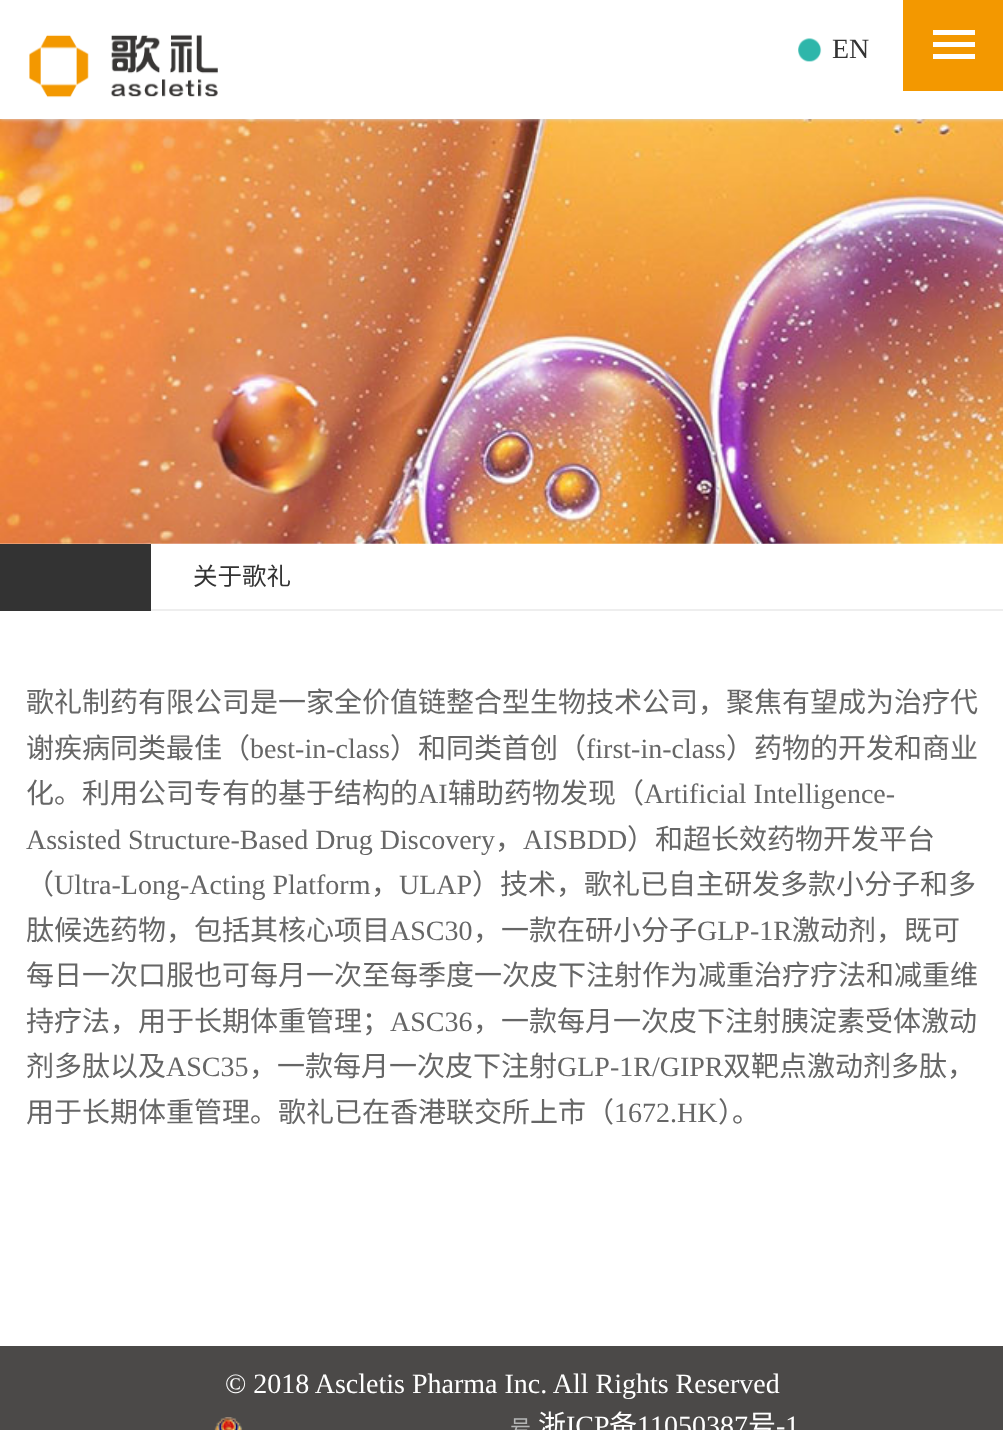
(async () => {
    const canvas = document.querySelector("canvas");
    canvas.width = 1003;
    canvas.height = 1430;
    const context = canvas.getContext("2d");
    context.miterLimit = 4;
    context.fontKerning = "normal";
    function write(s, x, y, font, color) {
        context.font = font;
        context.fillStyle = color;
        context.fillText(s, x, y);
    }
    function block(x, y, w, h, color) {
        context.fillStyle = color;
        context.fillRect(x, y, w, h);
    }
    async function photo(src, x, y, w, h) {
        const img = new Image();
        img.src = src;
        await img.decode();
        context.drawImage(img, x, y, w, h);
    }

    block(0, 0, 1003, 1430, "rgb(255, 255, 255)");
    await photo("media/3.png", 0, 119, 1003, 425);
    context.fillStyle = "rgb(221, 221, 221)";
    context.filter = "blur(2px)";
    context.beginPath();
    context.rect(0, 0, 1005, 119);
    context.fill();
    context.filter = "none";
    block(0, 0, 1003, 119, "rgb(255, 255, 255)");
    await photo("media/1.png", 29, 34, 189, 64);
    await photo("media/2.png", 798, 38, 24, 24);
    write("EN", 832, 58, "28px Liberation Serif", "rgb(51, 51, 51)");
    block(903, 0, 100, 91, "rgb(243, 152, 0)");
    block(933, 30, 42, 5, "rgb(255, 255, 255)");
    block(933, 42, 42, 5, "rgb(255, 255, 255)");
    block(933, 54, 42, 5, "rgb(255, 255, 255)");
    block(151, 609, 852, 2, "rgb(238, 238, 238)");
    block(0, 544, 151, 67, "rgb(51, 51, 51)");
    write("关于歌礼", 193, 585, "24.5px Noto Sans CJK SC", "rgb(51, 51, 51)");
    write("歌礼制药有限公司是一家全价值链整合型生物技术公司，聚焦有望成为治疗代", 26, 712, "28px Noto Sans CJK SC", "rgb(102, 102, 102)");
    write("谢疾病同类最佳（", 26, 758, "28px Noto Sans CJK SC", "rgb(102, 102, 102)");
    write("best-in-class", 250, 758, "28px Liberation Serif", "rgb(102, 102, 102)");
    write("）和同类首创（", 390, 758, "28px Noto Sans CJK SC", "rgb(102, 102, 102)");
    write("first-in-class", 586, 758, "28px Liberation Serif", "rgb(102, 102, 102)");
    write("）药物的开发和商业", 726, 758, "28px Noto Sans CJK SC", "rgb(102, 102, 102)");
    write("化。利用公司专有的基于结构的", 26, 803, "28px Noto Sans CJK SC", "rgb(102, 102, 102)");
    write("AI", 418, 803, "28px Liberation Serif", "rgb(102, 102, 102)");
    write("辅助药物发现（", 448, 803, "28px Noto Sans CJK SC", "rgb(102, 102, 102)");
    write("Artificial Intelligence-", 644, 803, "28px Liberation Serif", "rgb(102, 102, 102)");
    write("Assisted Structure-Based Drug Discovery", 26, 849, "28px Liberation Serif", "rgb(102, 102, 102)");
    write("，", 495, 849, "28px Noto Sans CJK SC", "rgb(102, 102, 102)");
    write("AISBDD", 523, 849, "28px Liberation Serif", "rgb(102, 102, 102)");
    write("）和超长效药物开发平台", 627, 849, "28px Noto Sans CJK SC", "rgb(102, 102, 102)");
    write("（", 26, 894, "28px Noto Sans CJK SC", "rgb(102, 102, 102)");
    write("Ultra-Long-Acting Platform", 54, 894, "28px Liberation Serif", "rgb(102, 102, 102)");
    write("，", 371, 894, "28px Noto Sans CJK SC", "rgb(102, 102, 102)");
    write("ULAP", 399, 894, "28px Liberation Serif", "rgb(102, 102, 102)");
    write("）技术，歌礼已自主研发多款小分子和多", 472, 894, "28px Noto Sans CJK SC", "rgb(102, 102, 102)");
    write("肽候选药物，包括其核心项目", 26, 940, "28px Noto Sans CJK SC", "rgb(102, 102, 102)");
    write("ASC30", 390, 940, "28px Liberation Serif", "rgb(102, 102, 102)");
    write("，一款在研小分子", 473, 940, "28px Noto Sans CJK SC", "rgb(102, 102, 102)");
    write("GLP-1R", 697, 940, "28px Liberation Serif", "rgb(102, 102, 102)");
    write("激动剂，既可", 792, 940, "28px Noto Sans CJK SC", "rgb(102, 102, 102)");
    write("每日一次口服也可每月一次至每季度一次皮下注射作为减重治疗疗法和减重维", 26, 985, "28px Noto Sans CJK SC", "rgb(102, 102, 102)");
    write("持疗法，用于长期体重管理；", 26, 1031, "28px Noto Sans CJK SC", "rgb(102, 102, 102)");
    write("ASC36", 390, 1031, "28px Liberation Serif", "rgb(102, 102, 102)");
    write("，一款每月一次皮下注射胰淀素受体激动", 473, 1031, "28px Noto Sans CJK SC", "rgb(102, 102, 102)");
    write("剂多肽以及", 26, 1076, "28px Noto Sans CJK SC", "rgb(102, 102, 102)");
    write("ASC35", 166, 1076, "28px Liberation Serif", "rgb(102, 102, 102)");
    write("，一款每月一次皮下注射", 249, 1076, "28px Noto Sans CJK SC", "rgb(102, 102, 102)");
    write("GLP-1R/GIPR", 557, 1076, "28px Liberation Serif", "rgb(102, 102, 102)");
    write("双靶点激动剂多肽，", 723, 1076, "28px Noto Sans CJK SC", "rgb(102, 102, 102)");
    write("用于长期体重管理。歌礼已在香港联交所上市（", 26, 1122, "28px Noto Sans CJK SC", "rgb(102, 102, 102)");
    write("1672.HK", 614, 1122, "28px Liberation Serif", "rgb(102, 102, 102)");
    write("）。", 718, 1122, "28px Noto Sans CJK SC", "rgb(102, 102, 102)");
    block(0, 1346, 1003, 84, "rgb(75, 73, 72)");
    write("© 2018 Ascletis Pharma Inc. All Rights Reserved", 225, 1393, "28px Liberation Serif", "rgb(255, 255, 255)");
    await photo("media/4.png", 214, 1417, 29, 13);
    write("号", 510, 1435, "21px Noto Sans CJK SC", "rgb(181, 182, 182)");
    write("浙", 538, 1435, "28px Noto Sans CJK SC", "rgb(255, 255, 255)");
    write("ICP", 566, 1435, "28px Liberation Serif", "rgb(255, 255, 255)");
    write("备", 609, 1435, "28px Noto Sans CJK SC", "rgb(255, 255, 255)");
    write("11050387", 637, 1435, "28px Liberation Serif", "rgb(255, 255, 255)");
    write("号", 748, 1435, "28px Noto Sans CJK SC", "rgb(255, 255, 255)");
    write("-1", 776, 1435, "28px Liberation Serif", "rgb(255, 255, 255)");
})();
